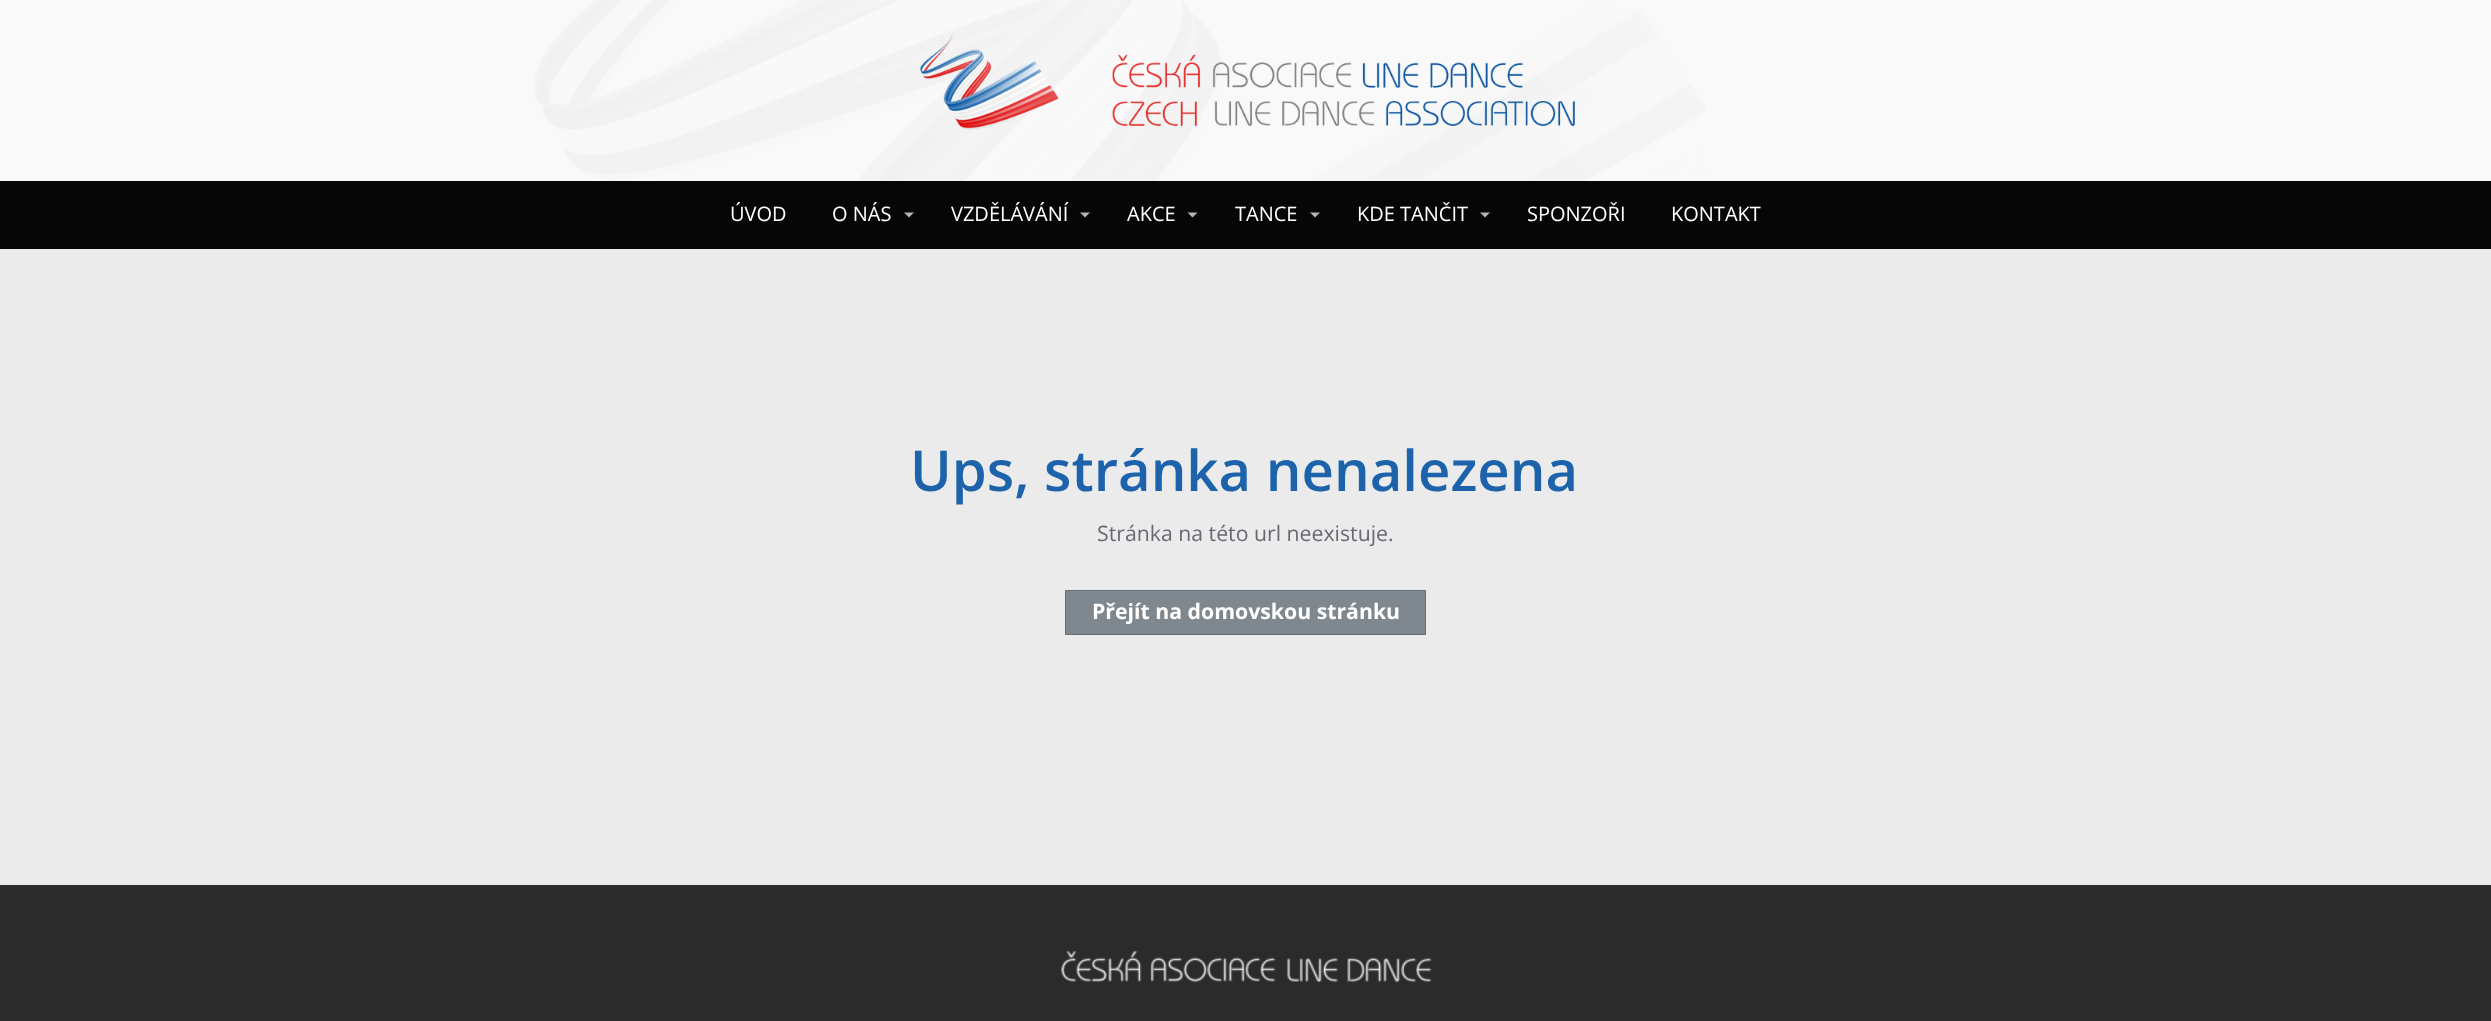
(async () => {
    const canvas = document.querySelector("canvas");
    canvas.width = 2491;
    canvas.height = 1021;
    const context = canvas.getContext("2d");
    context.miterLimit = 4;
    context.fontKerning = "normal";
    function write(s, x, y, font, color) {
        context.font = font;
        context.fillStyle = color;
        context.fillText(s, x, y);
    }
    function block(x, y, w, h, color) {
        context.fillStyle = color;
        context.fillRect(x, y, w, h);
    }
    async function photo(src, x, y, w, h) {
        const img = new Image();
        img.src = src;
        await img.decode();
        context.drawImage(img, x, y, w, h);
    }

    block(0, 0, 2491, 1021, "rgb(249, 249, 249)");
    await photo("media/1.png", 534, 0, 1219, 181);
    await photo("media/2.png", 920, 32, 655, 98);
    block(0, 181, 2491, 68, "rgb(6, 6, 6)");
    write("ÚVOD", 730, 221, "20px Open Sans", "rgb(255, 255, 255)");
    write("O NÁS", 832, 221, "20px Open Sans", "rgb(255, 255, 255)");
    context.fillStyle = "rgb(180, 180, 180)";
    context.beginPath();
    context.moveTo(904, 212.5);
    context.lineTo(914, 212.5);
    context.lineTo(909, 217.5);
    context.closePath();
    context.fill();
    write("VZDĚLÁVÁNÍ", 951, 221, "20px Open Sans", "rgb(255, 255, 255)");
    context.fillStyle = "rgb(180, 180, 180)";
    context.beginPath();
    context.moveTo(1080, 212.5);
    context.lineTo(1090, 212.5);
    context.lineTo(1085, 217.5);
    context.closePath();
    context.fill();
    write("AKCE", 1127, 221, "20px Open Sans", "rgb(255, 255, 255)");
    context.fillStyle = "rgb(180, 180, 180)";
    context.beginPath();
    context.moveTo(1187.5, 212.5);
    context.lineTo(1197.5, 212.5);
    context.lineTo(1192.5, 217.5);
    context.closePath();
    context.fill();
    write("TANCE", 1235, 221, "20px Open Sans", "rgb(255, 255, 255)");
    context.fillStyle = "rgb(180, 180, 180)";
    context.beginPath();
    context.moveTo(1310, 212.5);
    context.lineTo(1320, 212.5);
    context.lineTo(1315, 217.5);
    context.closePath();
    context.fill();
    write("KDE TANČIT", 1357, 221, "20px Open Sans", "rgb(255, 255, 255)");
    context.fillStyle = "rgb(180, 180, 180)";
    context.beginPath();
    context.moveTo(1480, 212.5);
    context.lineTo(1490, 212.5);
    context.lineTo(1485, 217.5);
    context.closePath();
    context.fill();
    write("SPONZOŘI", 1527, 221, "20px Open Sans", "rgb(255, 255, 255)");
    write("KONTAKT", 1671, 221, "20px Open Sans", "rgb(255, 255, 255)");
    block(0, 249, 2491, 636, "rgb(235, 235, 235)");
    write("Ups, stránka nenalezena", 910, 491, "600 56.25px Open Sans", "rgb(28, 99, 171)");
    write("Stránka na této url neexistuje.", 1097, 541, "21.25px Open Sans", "rgb(105, 105, 117)");
    context.fillStyle = "rgb(127, 136, 143)";
    context.beginPath();
    context.rect(1065.5, 590.5, 360, 44);
    context.fill();
    context.strokeStyle = "rgb(102, 109, 114)";
    context.stroke();
    write("Přejít na domovskou stránku", 1092, 619, "bold 21.25px Open Sans", "rgb(255, 255, 255)");
    block(0, 885, 2491, 136, "rgb(43, 43, 43)");
    await photo("media/3.png", 1061, 950, 371, 33);
})();
